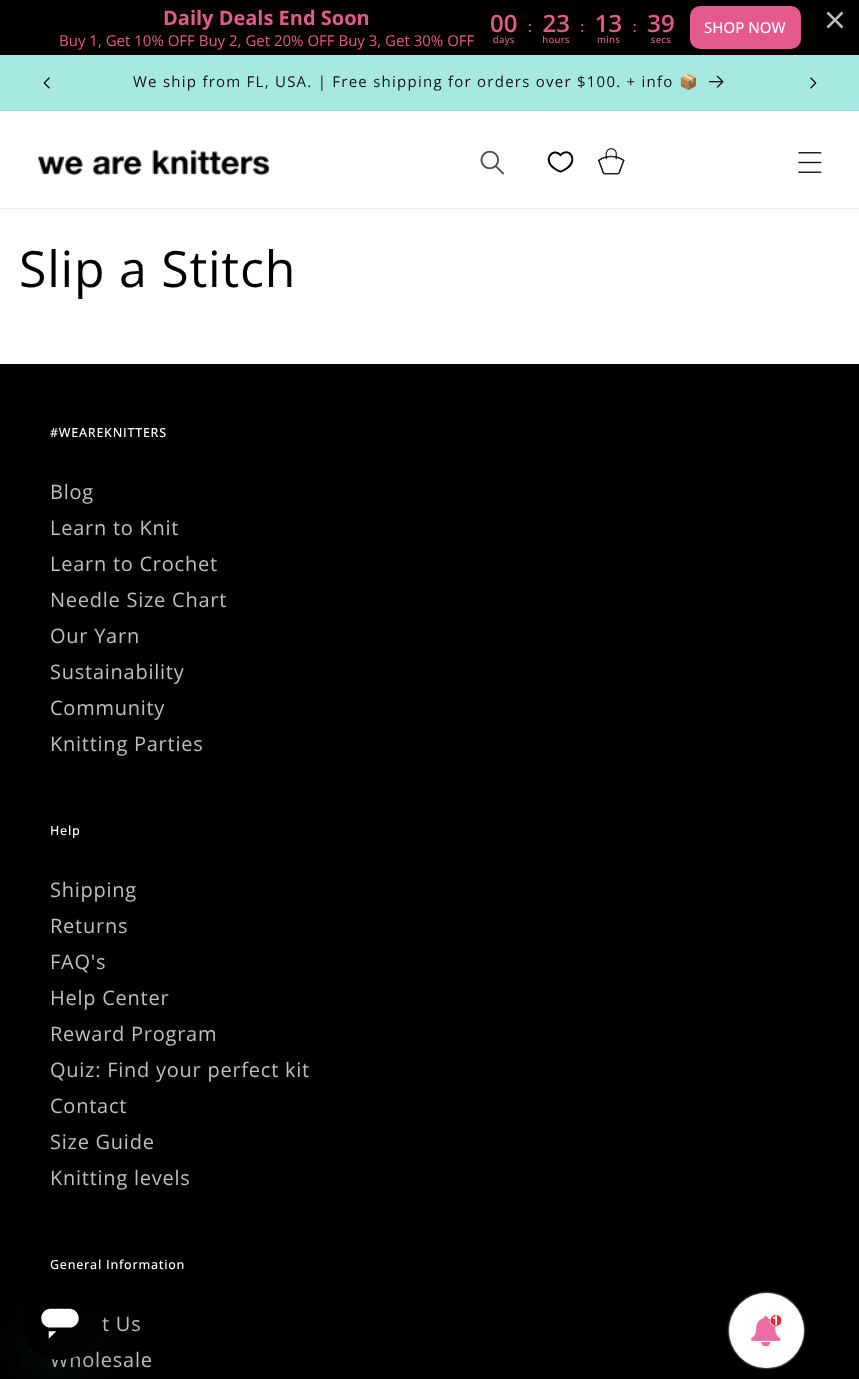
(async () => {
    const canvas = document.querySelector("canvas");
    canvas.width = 859;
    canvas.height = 1379;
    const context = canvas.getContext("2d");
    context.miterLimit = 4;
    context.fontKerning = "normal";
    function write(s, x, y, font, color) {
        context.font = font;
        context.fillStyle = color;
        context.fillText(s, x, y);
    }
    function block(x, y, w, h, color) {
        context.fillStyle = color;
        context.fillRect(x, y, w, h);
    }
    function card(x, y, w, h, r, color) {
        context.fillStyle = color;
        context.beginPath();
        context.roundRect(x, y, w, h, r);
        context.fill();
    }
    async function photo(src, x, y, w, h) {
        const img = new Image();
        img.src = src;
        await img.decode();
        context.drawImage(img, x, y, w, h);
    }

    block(0, 0, 859, 1379, "rgb(255, 255, 255)");
    block(0, 0, 859, 55, "rgb(0, 0, 0)");
    write("Daily Deals End Soon", 163, 25, "bold 20px Open Sans", "rgb(228, 89, 142)");
    write("Buy 1, Get 10% OFF Buy 2, Get 20% OFF Buy 3, Get 30% OFF", 59, 46, "15px Open Sans", "rgb(228, 89, 142)");
    await photo("media/1.png", 491, 14, 183, 32);
    card(690, 6, 111, 43, 10, "rgb(228, 89, 142)");
    write("SHOP NOW", 704, 33, "500 15px Open Sans", "rgb(255, 255, 255)");
    context.beginPath();
    context.moveTo(842.5, 12.5);
    context.lineTo(827.5, 27.5);
    context.moveTo(842.5, 27.5);
    context.lineTo(827.5, 12.5);
    context.strokeStyle = "rgb(189, 189, 189)";
    context.lineWidth = 2.5;
    context.stroke();
    block(0, 55, 859, 55, "rgb(168, 232, 226)");
    block(0, 110, 859, 1, "rgb(156, 215, 209)");
    await photo("media/2.png", 43, 77, 7, 12);
    context.letterSpacing = "1.25px";
    write("We ship from FL, USA. | Free shipping for orders over $100. + info", 133, 87, "15px Open Sans", "rgb(18, 18, 18)");
    write("📦", 679, 87, "15px Noto Color Emoji", "rgb(18, 18, 18)");
    await photo("media/3.png", 709, 75, 15, 13);
    await photo("media/4.png", 810, 77, 7, 12);
    block(0, 208, 859, 1, "rgb(236, 236, 236)");
    await photo("media/5.png", 37, 149, 233, 27);
    await photo("media/6.png", 480, 150, 24, 25);
    context.beginPath();
    context.moveTo(560, 154.5);
    context.lineTo(560.5, 155);
    context.bezierCurveTo(569, 146.5, 579, 160, 566.5, 168.5);
    context.bezierCurveTo(565, 169.5, 562.5, 171.5, 560.5, 171.5);
    context.bezierCurveTo(558.5, 171.5, 556, 169.5, 554.5, 168.5);
    context.bezierCurveTo(542, 160, 552.5, 147.5, 560, 154.5);
    context.closePath();
    context.strokeStyle = "rgb(0, 0, 0)";
    context.lineWidth = 2;
    context.stroke();
    await photo("media/7.png", 598, 148, 27, 27);
    await photo("media/8.png", 798, 152, 24, 21);
    context.letterSpacing = "0.75px";
    write("Slip a Stitch", 19, 287, "50px Open Sans", "rgb(0, 0, 0)");
    block(0, 364, 859, 1015, "rgb(0, 0, 0)");
    write("#WEAREKNITTERS", 50, 437, "500 12.5px Open Sans", "rgb(255, 255, 255)");
    write("Blog", 50, 499, "20px Open Sans", "rgb(191, 191, 191)");
    write("Learn to Knit", 50, 535, "20px Open Sans", "rgb(191, 191, 191)");
    write("Learn to Crochet", 50, 571, "20px Open Sans", "rgb(191, 191, 191)");
    write("Needle Size Chart", 50, 607, "20px Open Sans", "rgb(191, 191, 191)");
    write("Our Yarn", 50, 643, "20px Open Sans", "rgb(191, 191, 191)");
    write("Sustainability", 50, 679, "20px Open Sans", "rgb(191, 191, 191)");
    write("Community", 50, 715, "20px Open Sans", "rgb(191, 191, 191)");
    write("Knitting Parties", 50, 751, "20px Open Sans", "rgb(191, 191, 191)");
    write("Help", 50, 835, "500 12.5px Open Sans", "rgb(255, 255, 255)");
    write("Shipping", 50, 897, "20px Open Sans", "rgb(191, 191, 191)");
    write("Returns", 50, 933, "20px Open Sans", "rgb(191, 191, 191)");
    write("FAQ's", 50, 969, "20px Open Sans", "rgb(191, 191, 191)");
    write("Help Center", 50, 1005, "20px Open Sans", "rgb(191, 191, 191)");
    write("Reward Program", 50, 1041, "20px Open Sans", "rgb(191, 191, 191)");
    write("Quiz: Find your perfect kit", 50, 1077, "20px Open Sans", "rgb(191, 191, 191)");
    write("Contact", 50, 1113, "20px Open Sans", "rgb(191, 191, 191)");
    write("Size Guide", 50, 1149, "20px Open Sans", "rgb(191, 191, 191)");
    write("Knitting levels", 50, 1185, "20px Open Sans", "rgb(191, 191, 191)");
    write("General Information", 50, 1269, "500 12.5px Open Sans", "rgb(255, 255, 255)");
    write("t Us", 102, 1331, "20px Open Sans", "rgb(191, 191, 191)");
    write("Wholesale", 50, 1367, "20px Open Sans", "rgb(191, 191, 191)");
    context.save();
    context.beginPath();
    context.moveTo(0, 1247);
    context.lineTo(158, 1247);
    context.lineTo(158, 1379);
    context.lineTo(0, 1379);
    context.closePath();
    context.moveTo(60, 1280);
    context.bezierCurveTo(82, 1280, 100, 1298, 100, 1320);
    context.bezierCurveTo(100, 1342, 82, 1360, 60, 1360);
    context.bezierCurveTo(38, 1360, 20, 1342, 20, 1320);
    context.bezierCurveTo(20, 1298, 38, 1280, 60, 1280);
    context.closePath();
    context.clip("evenodd");
    context.fillStyle = "rgba(23, 73, 77, 0.15)";
    context.filter = "blur(19px)";
    context.beginPath();
    context.roundRect(20, 1305, 80, 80, 40);
    context.fill();
    context.filter = "none";
    context.restore();
    await photo("media/9.png", 41, 1308, 59, 52);
    context.fillStyle = "rgb(218, 218, 218)";
    context.filter = "blur(1px)";
    context.beginPath();
    context.roundRect(729, 1293, 75, 75, 37.5);
    context.fill();
    context.filter = "none";
    context.fillStyle = "rgb(255, 255, 255)";
    context.beginPath();
    context.arc(766.5, 1330.5, 37.5, 0, Math.PI * 2);
    context.fill();
    await photo("media/10.png", 751, 1315, 30, 31);
})();
